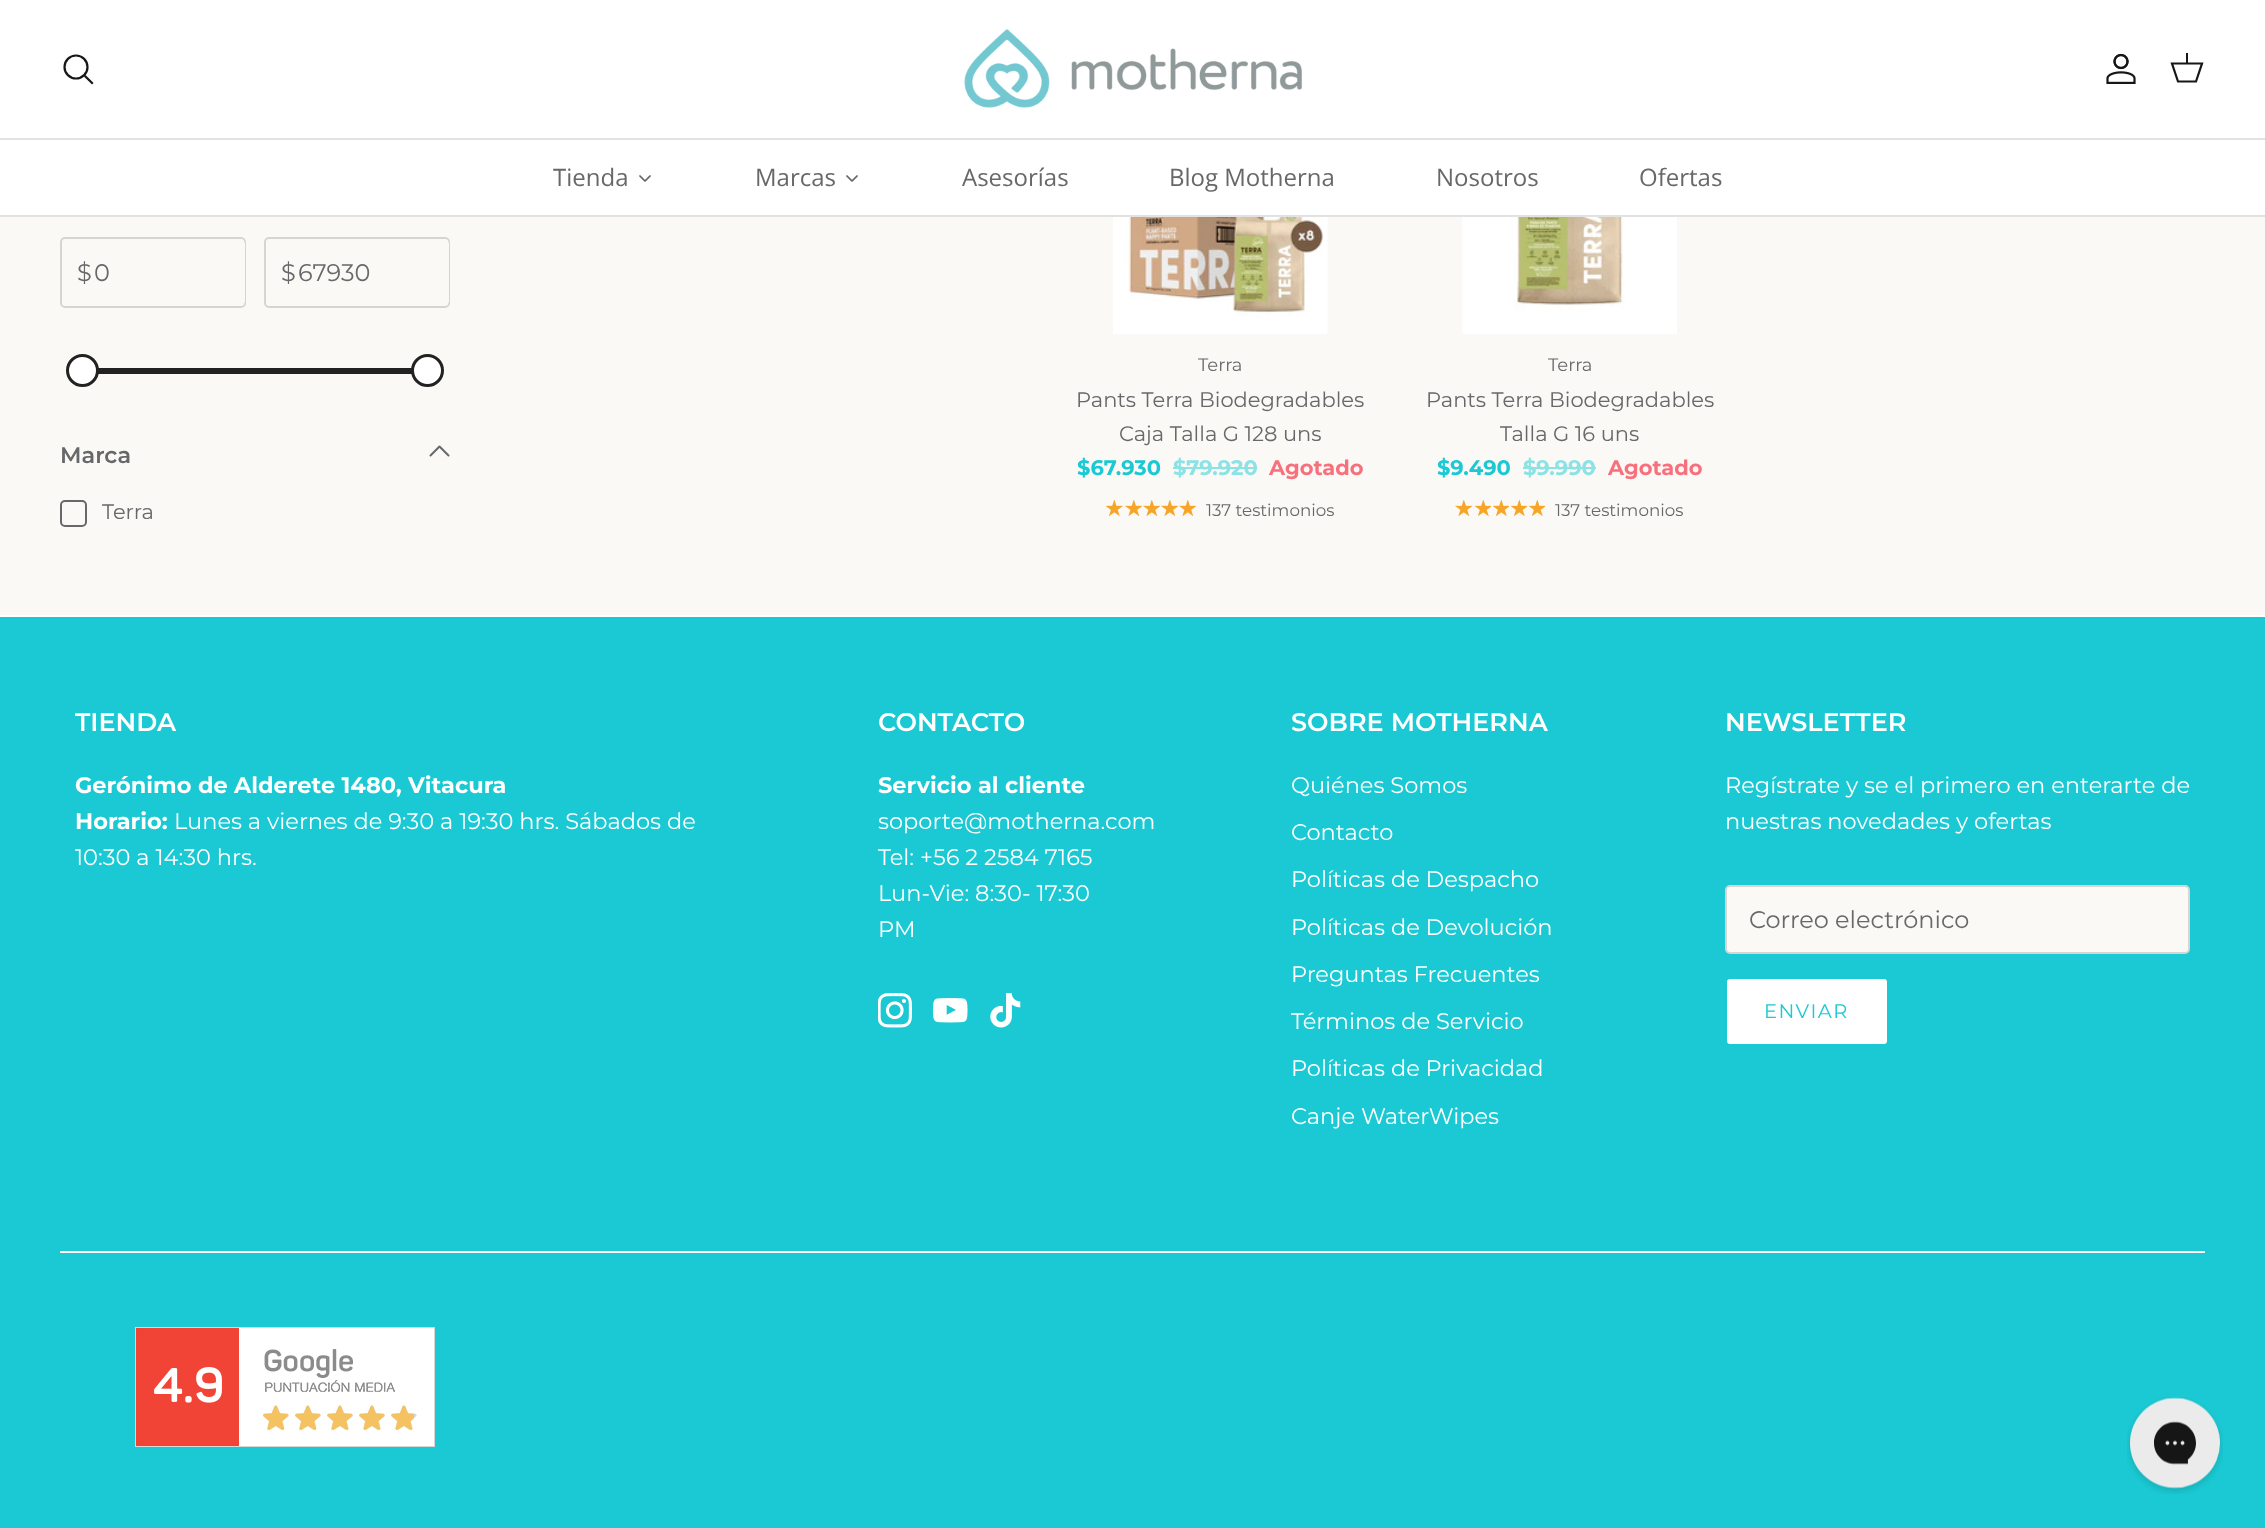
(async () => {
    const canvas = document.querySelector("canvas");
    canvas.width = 2265;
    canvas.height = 1528;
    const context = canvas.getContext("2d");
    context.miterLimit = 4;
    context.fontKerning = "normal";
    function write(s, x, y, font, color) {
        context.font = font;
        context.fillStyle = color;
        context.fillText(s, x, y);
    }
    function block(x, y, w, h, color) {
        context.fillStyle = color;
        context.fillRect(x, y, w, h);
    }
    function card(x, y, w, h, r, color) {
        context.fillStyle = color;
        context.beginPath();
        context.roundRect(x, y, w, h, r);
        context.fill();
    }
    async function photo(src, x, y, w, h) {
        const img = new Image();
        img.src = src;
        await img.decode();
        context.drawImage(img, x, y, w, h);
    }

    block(0, 0, 2265, 1528, "rgb(250, 249, 246)");
    block(0, 0, 2265, 138, "rgb(255, 255, 255)");
    block(0, 138, 2265, 2, "rgb(226, 226, 226)");
    context.beginPath();
    context.arc(76, 67, 11.5, 0, Math.PI * 2);
    context.strokeStyle = "rgb(23, 23, 23)";
    context.lineWidth = 2.2;
    context.stroke();
    context.beginPath();
    context.moveTo(85.5, 76.5);
    context.lineTo(92, 83);
    context.lineCap = "square";
    context.stroke();
    await photo("media/1.png", 964, 29, 338, 79);
    await photo("media/2.png", 2106, 53, 30, 31);
    context.beginPath();
    context.moveTo(2172, 63.5);
    context.lineTo(2202, 63.5);
    context.lineTo(2196, 81.5);
    context.lineTo(2178, 81.5);
    context.closePath();
    context.lineCap = "butt";
    context.stroke();
    block(2186, 53, 2, 11, "rgb(23, 23, 23)");
    block(0, 215, 2265, 2, "rgb(226, 226, 226)");
    block(0, 140, 2265, 75, "rgb(255, 255, 255)");
    write("Tienda", 553, 186, "24px Open Sans", "rgb(103, 104, 105)");
    await photo("media/3.png", 639, 175, 12, 7);
    write("Marcas", 755, 186, "24px Open Sans", "rgb(103, 104, 105)");
    await photo("media/3.png", 846, 175, 12, 7);
    write("Asesorías", 962, 186, "24px Open Sans", "rgb(103, 104, 105)");
    write("Blog Motherna", 1169, 186, "24px Open Sans", "rgb(103, 104, 105)");
    write("Nosotros", 1436, 186, "24px Open Sans", "rgb(103, 104, 105)");
    write("Ofertas", 1639, 186, "24px Open Sans", "rgb(103, 104, 105)");
    context.beginPath();
    context.roundRect(61, 238, 184, 69, 4);
    context.strokeStyle = "rgb(213, 213, 211)";
    context.lineWidth = 2;
    context.stroke();
    write("$", 77, 281, "24px Montserrat", "rgb(103, 104, 105)");
    card(95, 239, 150, 67, 5, "rgb(250, 249, 246)");
    write("0", 94, 281, "24px Montserrat", "rgb(103, 104, 105)");
    context.beginPath();
    context.roundRect(265, 238, 184, 69, 4);
    context.stroke();
    write("$", 281, 281, "24px Montserrat", "rgb(103, 104, 105)");
    card(299, 239, 150, 67, 5, "rgb(250, 249, 246)");
    write("67930", 298, 281, "24px Montserrat", "rgb(103, 104, 105)");
    block(98, 368, 314, 6, "rgb(34, 34, 34)");
    context.fillStyle = "rgb(255, 255, 255)";
    context.beginPath();
    context.arc(82.5, 370.5, 15, 0, Math.PI * 2);
    context.fill();
    context.strokeStyle = "rgb(34, 34, 34)";
    context.lineWidth = 3;
    context.stroke();
    context.beginPath();
    context.arc(427.5, 370.5, 15, 0, Math.PI * 2);
    context.fill();
    context.stroke();
    write("Marca", 60, 463, "600 22.5px Montserrat", "rgb(103, 104, 105)");
    context.beginPath();
    context.moveTo(448.5, 455.5);
    context.lineTo(439.5, 446.5);
    context.lineTo(430.5, 455.5);
    context.strokeStyle = "rgb(103, 104, 105)";
    context.lineWidth = 2;
    context.lineCap = "round";
    context.lineJoin = "round";
    context.stroke();
    context.beginPath();
    context.roundRect(61, 501, 25, 25, 4);
    context.lineJoin = "miter";
    context.stroke();
    write("Terra", 102, 519, "21px Montserrat", "rgb(103, 104, 105)");
    await photo("media/4.png", 1113, 217, 215, 117);
    write("Terra", 1198, 371, "18px Montserrat", "rgb(103, 104, 105)");
    write("Pants Terra Biodegradables", 1076, 407, "21px Montserrat", "rgb(103, 104, 105)");
    write("Caja Talla G 128 uns", 1119, 441, "21px Montserrat", "rgb(103, 104, 105)");
    write("$67.930", 1077, 475, "bold 21px Montserrat", "rgb(26, 201, 211)");
    write("$79.920", 1173, 475, "bold 21px Montserrat", "rgb(140, 226, 229)");
    block(1173, 467, 84, 2, "rgb(140, 226, 229)");
    write("Agotado", 1269, 475, "bold 21px Montserrat", "rgb(248, 112, 124)");
    await photo("media/5.png", 1106, 500, 17, 16);
    await photo("media/6.png", 1125, 500, 17, 16);
    await photo("media/6.png", 1143, 500, 17, 16);
    await photo("media/6.png", 1161, 500, 17, 16);
    await photo("media/6.png", 1179, 500, 17, 16);
    await photo("media/7.png", 1106, 500, 17, 17);
    await photo("media/8.png", 1125, 500, 17, 17);
    await photo("media/8.png", 1143, 500, 17, 17);
    await photo("media/8.png", 1161, 500, 17, 17);
    await photo("media/8.png", 1179, 500, 17, 17);
    write("137 testimonios", 1206, 516, "16.75px Montserrat", "rgb(103, 104, 105)");
    await photo("media/9.png", 1462, 217, 215, 117);
    write("Terra", 1548, 371, "18px Montserrat", "rgb(103, 104, 105)");
    write("Pants Terra Biodegradables", 1426, 407, "21px Montserrat", "rgb(103, 104, 105)");
    write("Talla G 16 uns", 1500, 441, "21px Montserrat", "rgb(103, 104, 105)");
    write("$9.490", 1437, 475, "bold 21px Montserrat", "rgb(26, 201, 211)");
    write("$9.990", 1523, 475, "bold 21px Montserrat", "rgb(140, 226, 229)");
    block(1523, 467, 73, 2, "rgb(140, 226, 229)");
    write("Agotado", 1608, 475, "bold 21px Montserrat", "rgb(248, 112, 124)");
    await photo("media/6.png", 1455, 500, 17, 16);
    await photo("media/10.png", 1475, 500, 16, 16);
    await photo("media/10.png", 1493, 500, 16, 16);
    await photo("media/10.png", 1511, 500, 16, 16);
    await photo("media/10.png", 1529, 500, 16, 16);
    await photo("media/11.png", 1455, 500, 18, 17);
    await photo("media/12.png", 1475, 500, 16, 17);
    await photo("media/12.png", 1493, 500, 16, 17);
    await photo("media/12.png", 1511, 500, 16, 17);
    await photo("media/12.png", 1529, 500, 16, 17);
    write("137 testimonios", 1555, 516, "16.75px Montserrat", "rgb(103, 104, 105)");
    block(0, 617, 2265, 911, "rgb(26, 201, 211)");
    block(0, 615, 2265, 2, "rgb(255, 255, 255)");
    write("TIENDA", 75, 731, "600 25.5px Montserrat", "rgb(255, 255, 255)");
    write("Gerónimo de Alderete 1480, Vitacura", 75, 793, "bold 22.5px Montserrat", "rgb(255, 255, 255)");
    write("Horario:", 75, 829, "bold 22.5px Montserrat", "rgb(255, 255, 255)");
    write("Lunes a viernes de 9:30 a 19:30 hrs. Sábados de", 174, 829, "22.5px Montserrat", "rgb(255, 255, 255)");
    write("10:30 a 14:30 hrs.", 75, 865, "22.5px Montserrat", "rgb(255, 255, 255)");
    write("CONTACTO", 878, 731, "600 25.5px Montserrat", "rgb(255, 255, 255)");
    write("Servicio al cliente", 878, 793, "bold 22.5px Montserrat", "rgb(255, 255, 255)");
    write("soporte@motherna.com", 878, 829, "22.5px Montserrat", "rgb(255, 255, 255)");
    write("Tel: +56 2 2584 7165", 878, 865, "22.5px Montserrat", "rgb(255, 255, 255)");
    write("Lun-Vie: 8:30- 17:30", 878, 901, "22.5px Montserrat", "rgb(255, 255, 255)");
    write("PM", 878, 937, "22.5px Montserrat", "rgb(255, 255, 255)");
    await photo("media/13.png", 878, 993, 34, 35);
    await photo("media/14.png", 933, 998, 35, 25);
    await photo("media/15.png", 990, 993, 31, 35);
    write("SOBRE MOTHERNA", 1291, 731, "600 25.5px Montserrat", "rgb(255, 255, 255)");
    write("Quiénes Somos", 1291, 793, "22.5px Montserrat", "rgb(255, 255, 255)");
    write("Contacto", 1291, 840, "22.5px Montserrat", "rgb(255, 255, 255)");
    write("Políticas de Despacho", 1291, 887, "22.5px Montserrat", "rgb(255, 255, 255)");
    write("Políticas de Devolución", 1291, 935, "22.5px Montserrat", "rgb(255, 255, 255)");
    write("Preguntas Frecuentes", 1291, 982, "22.5px Montserrat", "rgb(255, 255, 255)");
    write("Términos de Servicio", 1291, 1029, "22.5px Montserrat", "rgb(255, 255, 255)");
    write("Políticas de Privacidad", 1291, 1076, "22.5px Montserrat", "rgb(255, 255, 255)");
    write("Canje WaterWipes", 1291, 1124, "22.5px Montserrat", "rgb(255, 255, 255)");
    write("NEWSLETTER", 1725, 731, "600 25.5px Montserrat", "rgb(255, 255, 255)");
    write("Regístrate y se el primero en enterarte de", 1725, 793, "22.5px Montserrat", "rgb(255, 255, 255)");
    write("nuestras novedades y ofertas", 1725, 829, "22.5px Montserrat", "rgb(255, 255, 255)");
    context.fillStyle = "rgb(250, 249, 246)";
    context.beginPath();
    context.roundRect(1726, 886, 463, 67, 4);
    context.fill();
    context.strokeStyle = "rgb(213, 213, 211)";
    context.stroke();
    write("Correo electrónico", 1749, 928, "24px Montserrat", "rgb(103, 104, 105)");
    context.fillStyle = "rgb(255, 255, 255)";
    context.beginPath();
    context.roundRect(1726, 978, 162, 67, 4);
    context.fill();
    context.strokeStyle = "rgb(26, 201, 211)";
    context.stroke();
    context.letterSpacing = "1.5px";
    write("ENVIAR", 1764, 1018, "19.5px Montserrat", "rgb(26, 201, 211)");
    block(60, 1251, 2145, 2, "rgb(255, 255, 255)");
    await photo("media/16.png", 135, 1327, 300, 120);
    await photo("media/17.png", 2127, 1397, 96, 97);
})();
